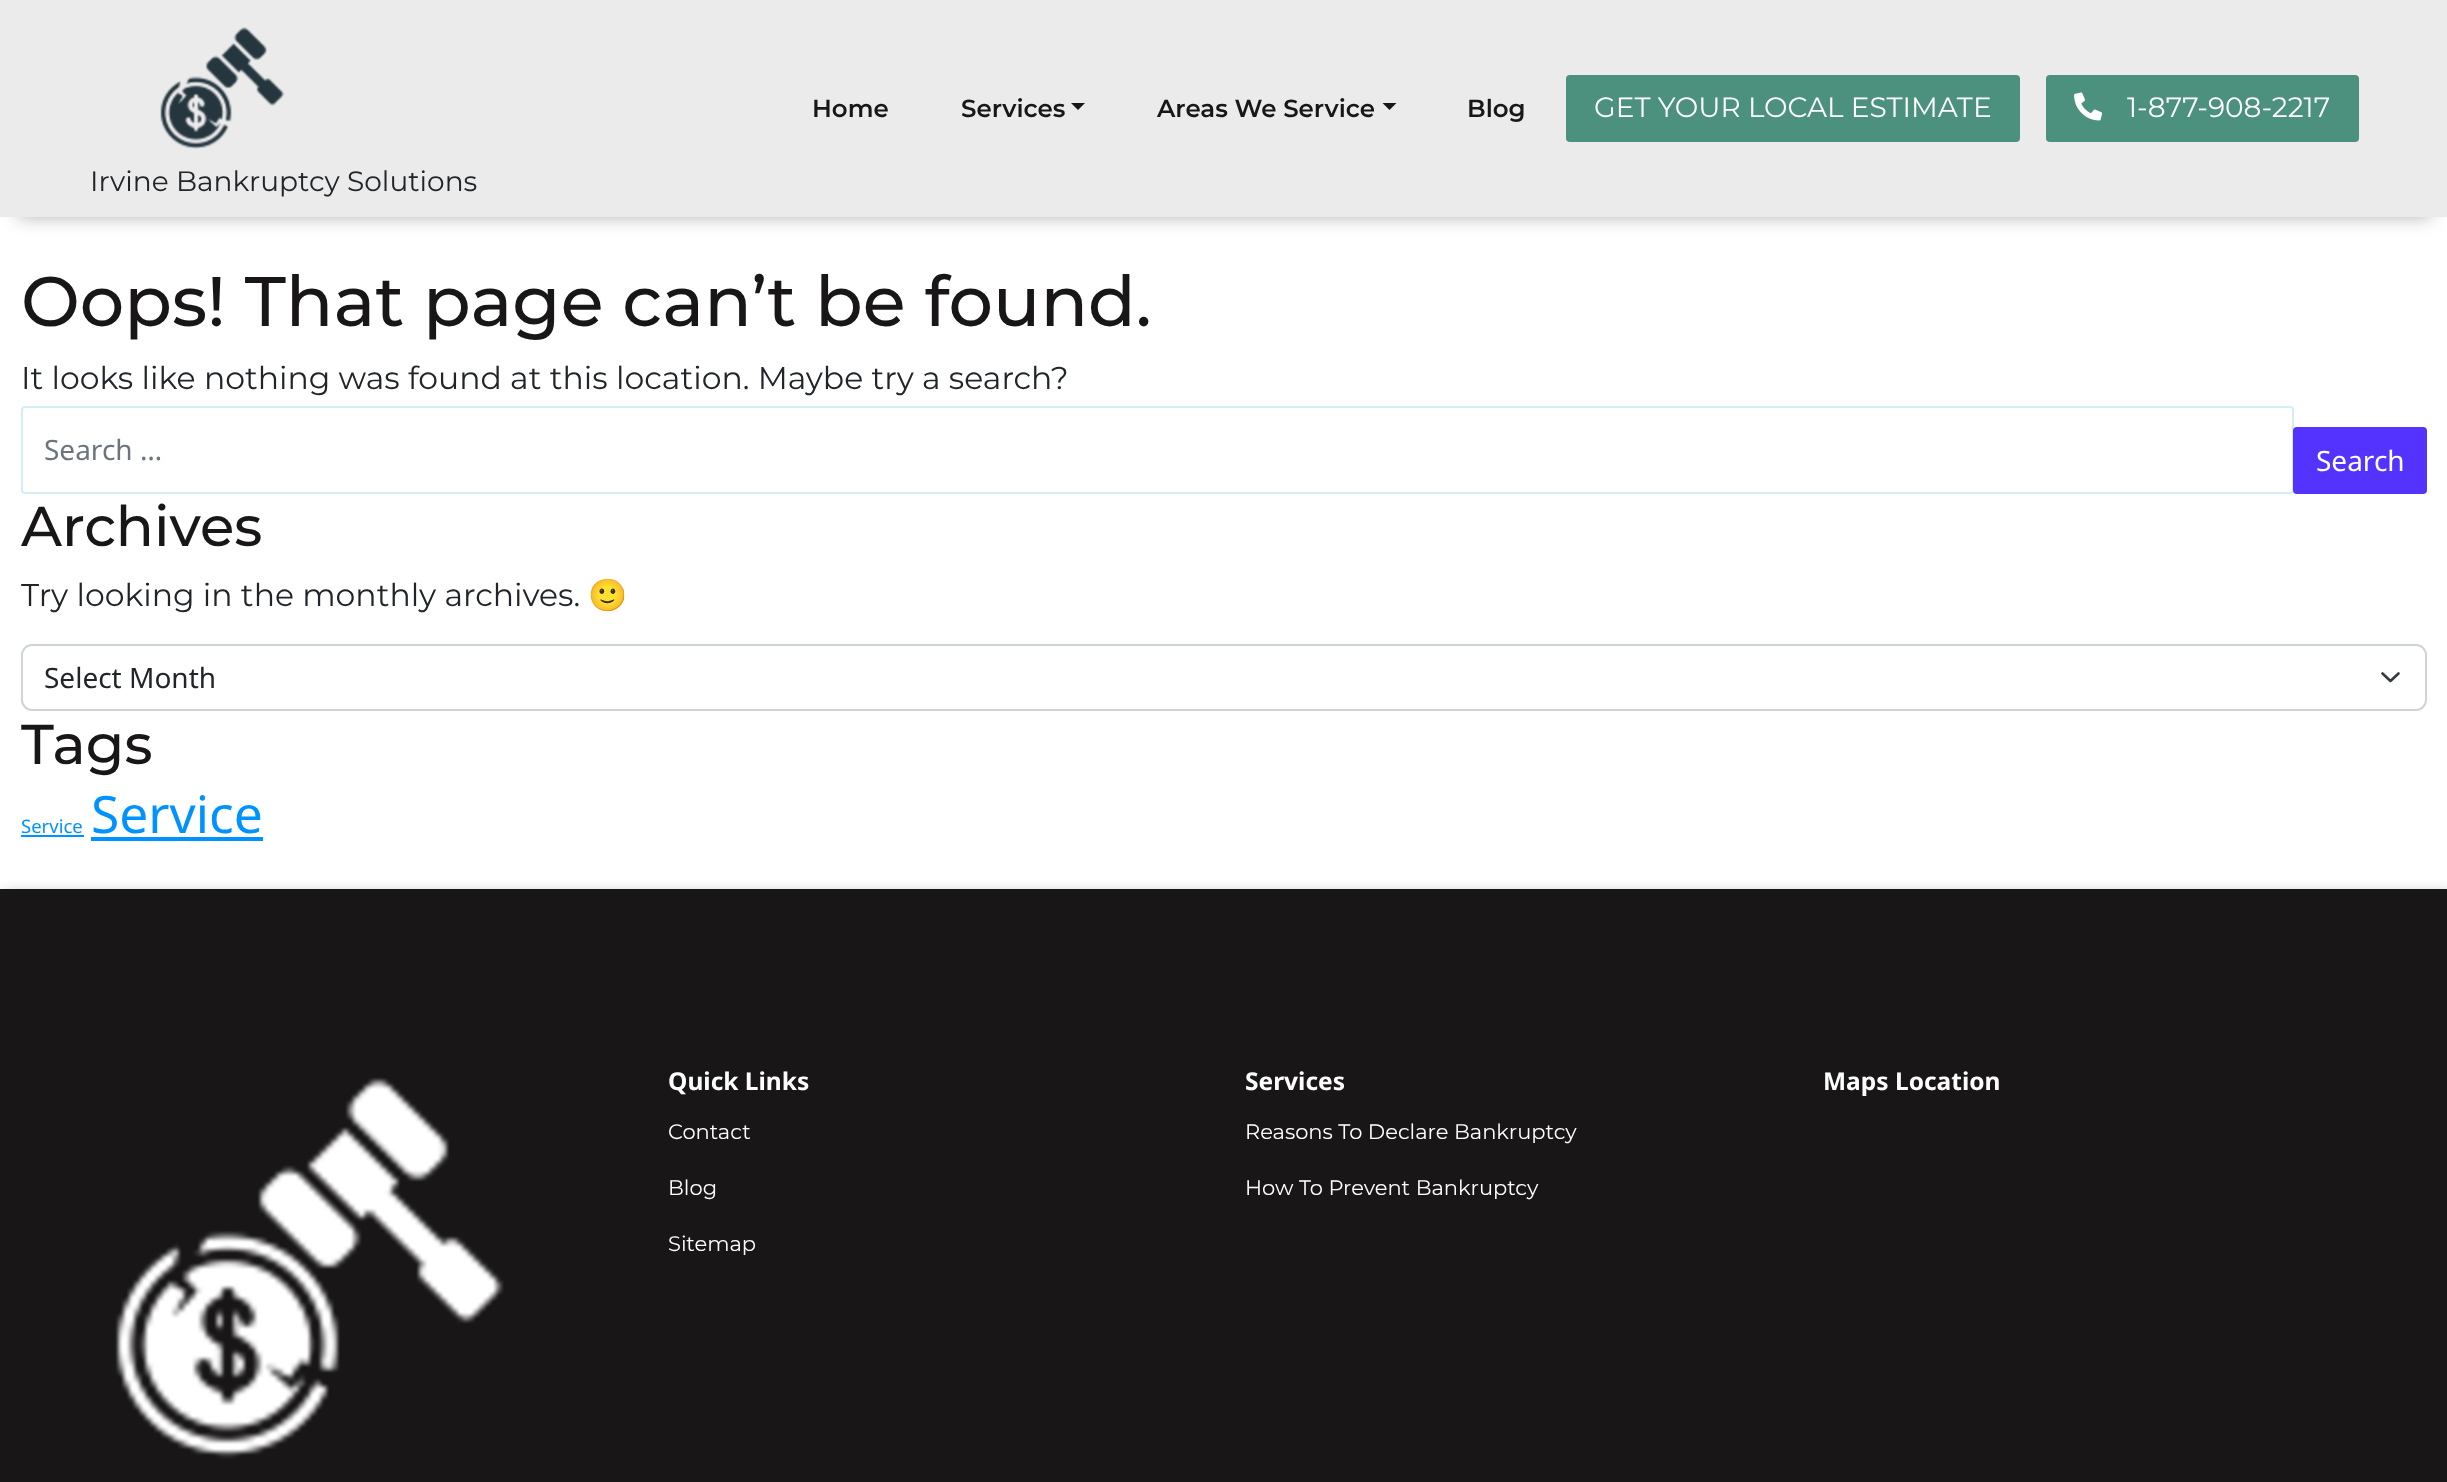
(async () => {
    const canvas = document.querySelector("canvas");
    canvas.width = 2447;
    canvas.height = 1482;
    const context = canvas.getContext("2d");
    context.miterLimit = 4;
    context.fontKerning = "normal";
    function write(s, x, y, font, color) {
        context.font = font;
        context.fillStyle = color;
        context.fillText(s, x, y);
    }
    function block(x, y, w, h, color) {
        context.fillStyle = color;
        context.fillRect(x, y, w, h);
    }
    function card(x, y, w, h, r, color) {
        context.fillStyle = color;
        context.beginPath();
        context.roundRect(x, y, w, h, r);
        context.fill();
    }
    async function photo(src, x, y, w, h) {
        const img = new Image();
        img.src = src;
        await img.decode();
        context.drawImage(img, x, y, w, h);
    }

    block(0, 0, 2447, 1482, "rgb(255, 255, 255)");
    context.fillStyle = "rgba(17, 17, 17, 0.33)";
    context.filter = "blur(9px)";
    context.beginPath();
    context.rect(18, 35, 2413, 182);
    context.fill();
    context.filter = "none";
    block(0, 0, 2447, 217, "rgb(235, 235, 235)");
    write("Home", 812, 117, "600 24.5px Montserrat", "rgb(24, 22, 23)");
    write("Services", 961, 117, "600 24.5px Montserrat", "rgb(24, 22, 23)");
    context.beginPath();
    context.moveTo(1071, 103);
    context.lineTo(1085, 103);
    context.lineTo(1078, 110);
    context.closePath();
    context.fill();
    write("Areas We Service", 1157, 117, "600 24.5px Montserrat", "rgb(24, 22, 23)");
    context.beginPath();
    context.moveTo(1382.5, 103);
    context.lineTo(1396.5, 103);
    context.lineTo(1389.5, 110);
    context.closePath();
    context.fill();
    write("Blog", 1467, 117, "600 24.5px Montserrat", "rgb(24, 22, 23)");
    card(1566, 75, 454, 67, 4, "rgb(75, 145, 125)");
    write("GET YOUR LOCAL ESTIMATE", 1594, 117, "28px Montserrat", "rgb(255, 255, 255)");
    card(2046, 75, 313, 67, 4, "rgb(75, 145, 125)");
    await photo("media/1.png", 2074, 92, 29, 29);
    write("1-877-908-2217", 2127, 117, "28px Montserrat", "rgb(255, 255, 255)");
    await photo("media/2.png", 160, 27, 125, 122);
    write("Irvine Bankruptcy Solutions", 90, 191, "28px Montserrat", "rgb(33, 37, 41)");
    write("Oops! That page can’t be found.", 21, 326, "500 70px Montserrat", "rgb(24, 22, 23)");
    write("It looks like nothing was found at this location. Maybe try a search?", 21, 389, "31.5px Montserrat", "rgb(33, 37, 41)");
    context.beginPath();
    context.roundRect(22, 407, 2271, 86, 3);
    context.strokeStyle = "rgb(212, 238, 249)";
    context.lineWidth = 2;
    context.stroke();
    write("Search …", 44, 460, "28px Noto Sans", "rgb(108, 117, 125)");
    context.fillStyle = "rgb(85, 51, 255)";
    context.beginPath();
    context.roundRect(2294, 428, 132, 65, 3);
    context.fill();
    context.strokeStyle = "rgb(85, 51, 255)";
    context.stroke();
    write("Search", 2316, 471, "28px Noto Sans", "rgb(255, 255, 255)");
    write("Archives", 21, 546, "500 56px Montserrat", "rgb(24, 22, 23)");
    write("Try looking in the monthly archives.", 21, 606, "31.5px Montserrat", "rgb(33, 37, 41)");
    write("🙂", 588, 606, "31.5px Noto Color Emoji", "rgb(33, 37, 41)");
    context.beginPath();
    context.moveTo(2382.5, 673.5);
    context.lineTo(2390.5, 681);
    context.lineTo(2398.5, 673.5);
    context.strokeStyle = "rgb(52, 58, 64)";
    context.lineWidth = 2.6;
    context.lineCap = "round";
    context.lineJoin = "round";
    context.stroke();
    context.beginPath();
    context.roundRect(22, 645, 2404, 65, 10);
    context.strokeStyle = "rgb(206, 212, 218)";
    context.lineWidth = 2;
    context.lineJoin = "miter";
    context.stroke();
    write("Select Month", 44, 688, "28px Noto Sans", "rgb(33, 37, 41)");
    write("Tags", 21, 764, "500 56px Montserrat", "rgb(24, 22, 23)");
    write("Service", 21, 833, "18.5px Noto Sans", "rgb(0, 147, 255)");
    block(21, 835, 63, 2, "rgb(0, 147, 255)");
    write("Service", 91, 833, "51.5px Noto Sans", "rgb(0, 147, 255)");
    block(91, 837, 172, 4, "rgb(0, 147, 255)");
    context.fillStyle = "rgba(17, 17, 17, 0.33)";
    context.filter = "blur(7px)";
    context.beginPath();
    context.rect(4, 893, 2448, 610);
    context.fill();
    context.filter = "none";
    block(0, 889, 2447, 593, "rgb(24, 22, 23)");
    await photo("media/3.png", 115, 1077, 389, 382);
    write("Quick Links", 668, 1090, "bold 24.5px Noto Sans", "rgb(255, 255, 255)");
    write("Contact", 668, 1139, "21px Montserrat", "rgb(255, 255, 255)");
    write("Blog", 668, 1195, "21px Montserrat", "rgb(255, 255, 255)");
    write("Sitemap", 668, 1251, "21px Montserrat", "rgb(255, 255, 255)");
    write("Services", 1245, 1090, "bold 24.5px Noto Sans", "rgb(255, 255, 255)");
    write("Reasons To Declare Bankruptcy", 1245, 1139, "21px Montserrat", "rgb(255, 255, 255)");
    write("How To Prevent Bankruptcy", 1245, 1195, "21px Montserrat", "rgb(255, 255, 255)");
    write("Maps Location", 1823, 1090, "bold 24.5px Noto Sans", "rgb(255, 255, 255)");
})();
